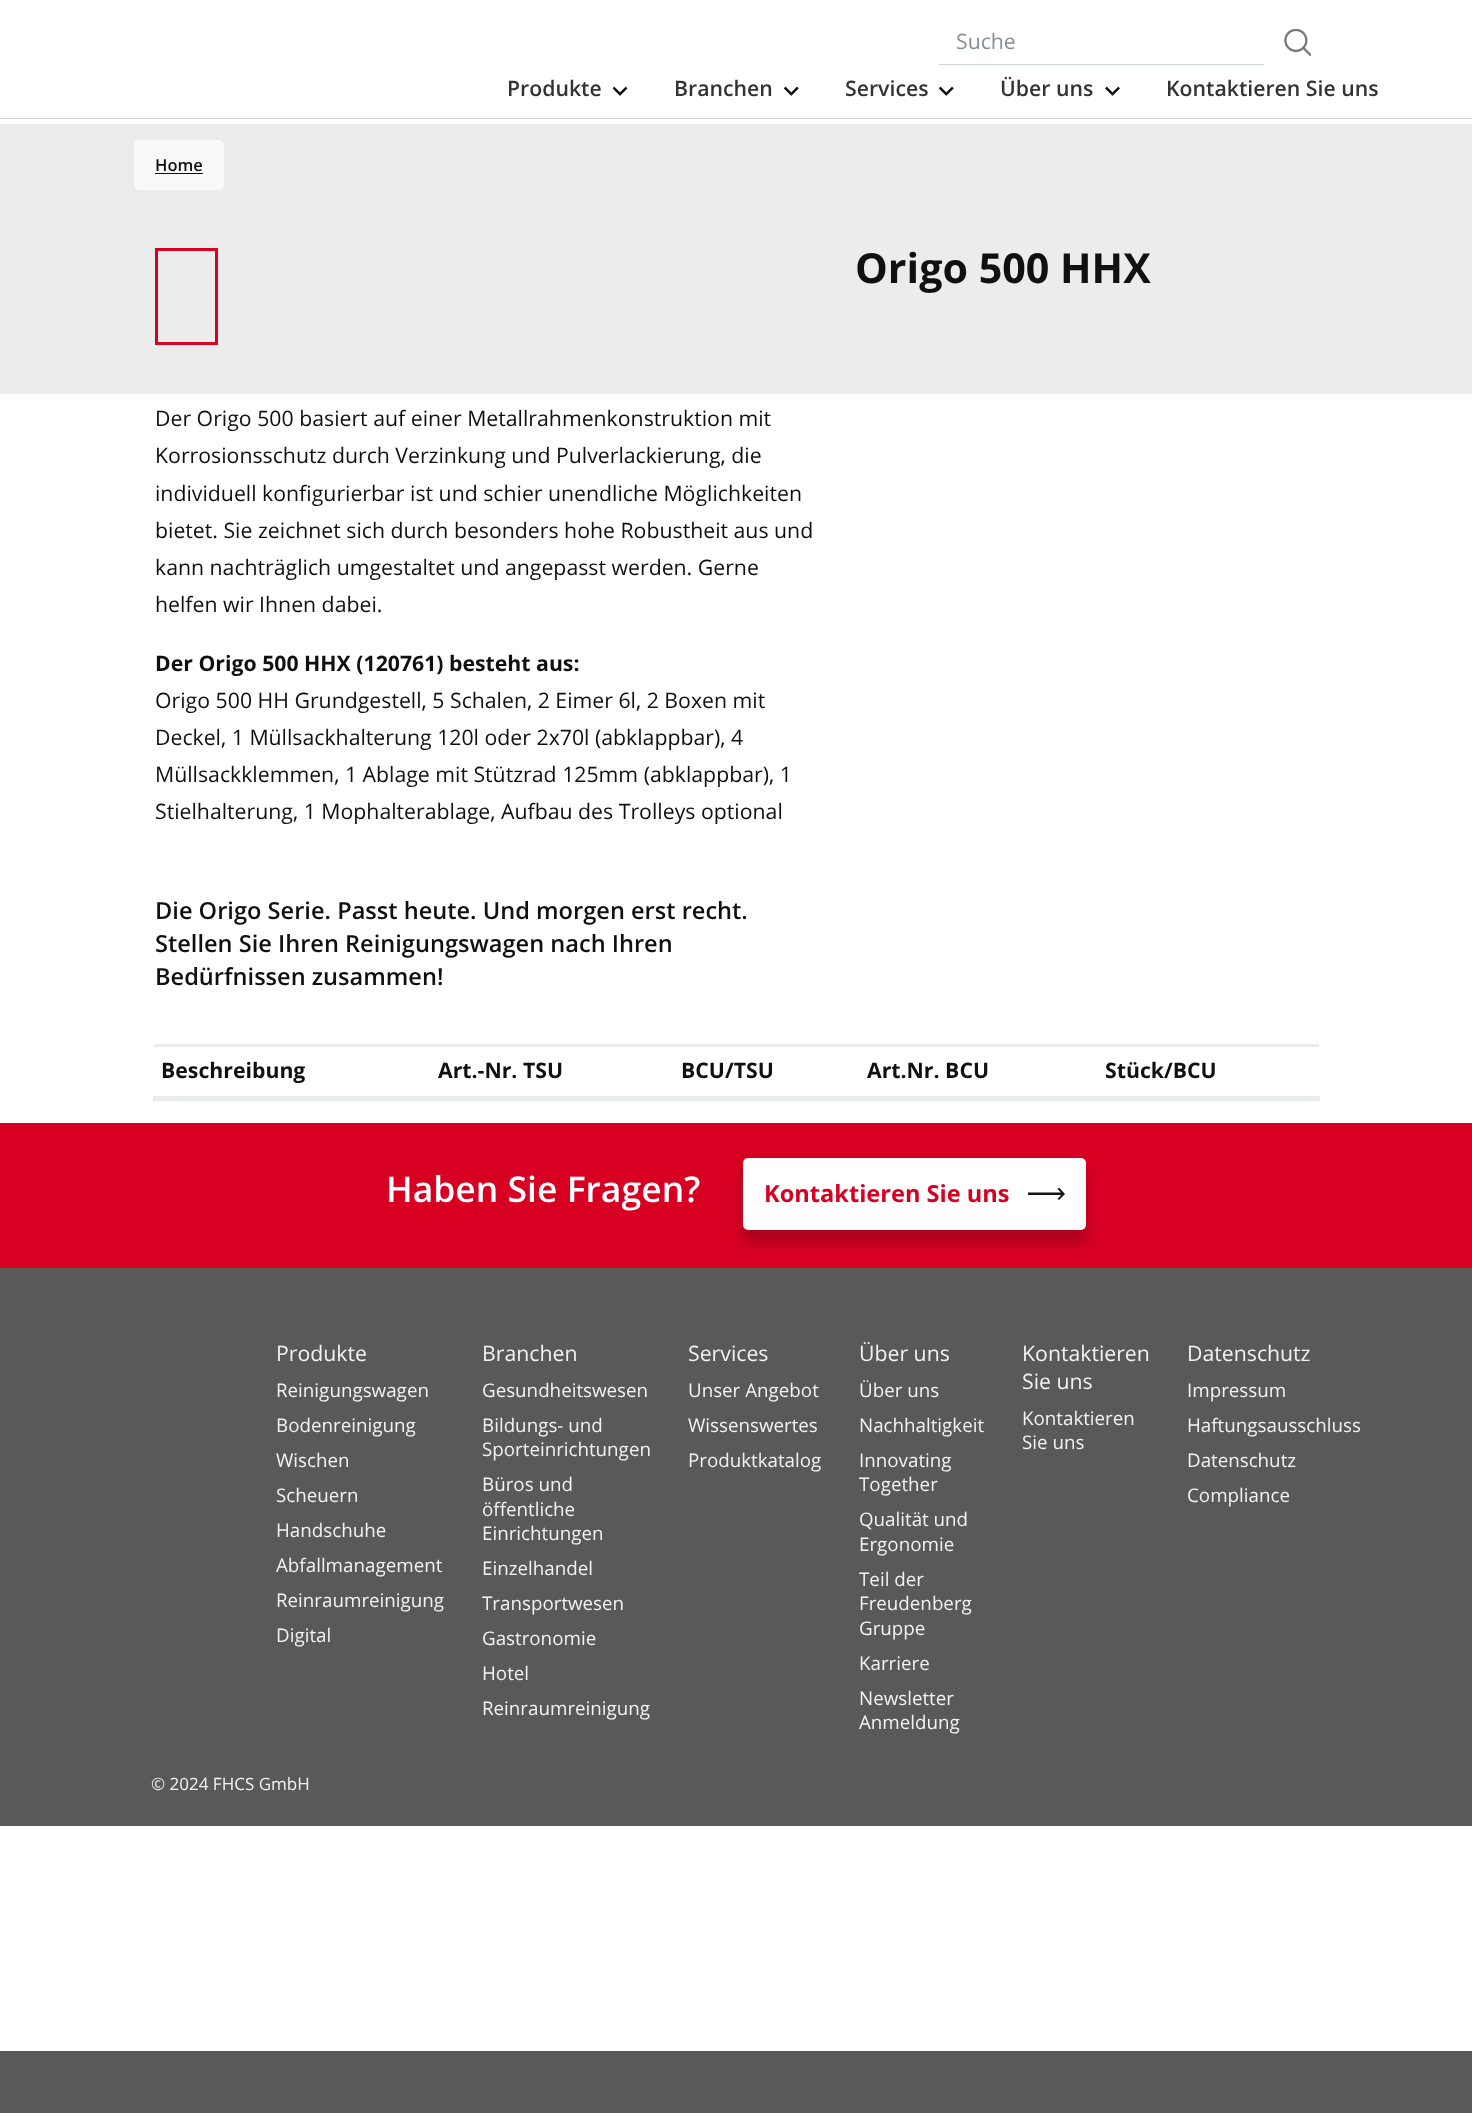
(async () => {
    const canvas = document.querySelector("canvas");
    canvas.width = 1472;
    canvas.height = 2113;
    const context = canvas.getContext("2d");
    context.miterLimit = 4;
    context.fontKerning = "normal";
    function write(s, x, y, font, color) {
        context.font = font;
        context.fillStyle = color;
        context.fillText(s, x, y);
    }
    function block(x, y, w, h, color) {
        context.fillStyle = color;
        context.fillRect(x, y, w, h);
    }
    function card(x, y, w, h, r, color) {
        context.fillStyle = color;
        context.beginPath();
        context.roundRect(x, y, w, h, r);
        context.fill();
    }
    async function photo(src, x, y, w, h) {
        const img = new Image();
        img.src = src;
        await img.decode();
        context.drawImage(img, x, y, w, h);
    }

    block(0, 0, 1472, 2113, "rgb(255, 255, 255)");
    block(0, 118, 1472, 1, "rgb(206, 212, 218)");
    block(939, 64, 325, 1, "rgb(206, 212, 218)");
    write("Suche", 956, 49, "21.25px Open Sans", "rgb(134, 142, 150)");
    await photo("media/1.png", 1284, 29, 27, 27);
    write("Produkte", 507, 96, "600 21.25px Open Sans", "rgb(51, 51, 51)");
    await photo("media/2.png", 613, 86, 15, 10);
    write("Branchen", 674, 96, "600 21.25px Open Sans", "rgb(51, 51, 51)");
    await photo("media/3.png", 784, 86, 15, 10);
    write("Services", 845, 96, "600 21.25px Open Sans", "rgb(51, 51, 51)");
    await photo("media/3.png", 939, 86, 15, 10);
    write("Über uns", 1000, 96, "600 21.25px Open Sans", "rgb(51, 51, 51)");
    await photo("media/4.png", 1105, 86, 15, 10);
    write("Kontaktieren Sie uns", 1166, 96, "600 21.25px Open Sans", "rgb(51, 51, 51)");
    block(0, 124, 1472, 270, "rgb(236, 236, 236)");
    card(134, 140, 90, 50, 5, "rgb(249, 249, 249)");
    write("Home", 155, 171, "600 16.5px Open Sans", "rgb(16, 16, 16)");
    block(155, 173, 48, 1, "rgb(16, 16, 16)");
    context.strokeStyle = "rgb(215, 0, 34)";
    context.lineWidth = 3;
    context.strokeRect(156.5, 249.5, 60, 94);
    write("Origo 500 HHX", 855, 283, "bold 41.25px Open Sans", "rgb(16, 16, 16)");
    write("Der Origo 500 basiert auf einer Metallrahmenkonstruktion mit", 155, 426, "21.25px Open Sans", "rgb(16, 16, 16)");
    write("Korrosionsschutz durch Verzinkung und Pulverlackierung, die", 155, 463, "21.25px Open Sans", "rgb(16, 16, 16)");
    write("individuell konfigurierbar ist und schier unendliche Möglichkeiten", 155, 501, "21.25px Open Sans", "rgb(16, 16, 16)");
    write("bietet. Sie zeichnet sich durch besonders hohe Robustheit aus und", 155, 538, "21.25px Open Sans", "rgb(16, 16, 16)");
    write("kann nachträglich umgestaltet und angepasst werden. Gerne", 155, 575, "21.25px Open Sans", "rgb(16, 16, 16)");
    write("helfen wir Ihnen dabei.", 155, 612, "21.25px Open Sans", "rgb(16, 16, 16)");
    write("Der Origo 500 HHX (120761) besteht aus:", 155, 671, "bold 21.25px Open Sans", "rgb(16, 16, 16)");
    write("Origo 500 HH Grundgestell, 5 Schalen, 2 Eimer 6l, 2 Boxen mit", 155, 708, "21.25px Open Sans", "rgb(16, 16, 16)");
    write("Deckel, 1 Müllsackhalterung 120l oder 2x70l (abklappbar), 4", 155, 745, "21.25px Open Sans", "rgb(16, 16, 16)");
    write("Müllsackklemmen, 1 Ablage mit Stützrad 125mm (abklappbar), 1", 155, 782, "21.25px Open Sans", "rgb(16, 16, 16)");
    write("Stielhalterung, 1 Mophalterablage, Aufbau des Trolleys optional", 155, 819, "21.25px Open Sans", "rgb(16, 16, 16)");
    write("Die Origo Serie. Passt heute. Und morgen erst recht.", 155, 919, "600 23.6px Open Sans", "rgb(16, 16, 16)");
    write("Stellen Sie Ihren Reinigungswagen nach Ihren", 155, 952, "600 23.6px Open Sans", "rgb(16, 16, 16)");
    write("Bedürfnissen zusammen!", 155, 985, "600 23.6px Open Sans", "rgb(16, 16, 16)");
    write("Beschreibung", 161, 1078, "bold 21.25px Open Sans", "rgb(16, 16, 16)");
    write("Art.-Nr. TSU", 438, 1078, "bold 21.25px Open Sans", "rgb(16, 16, 16)");
    write("BCU/TSU", 681, 1078, "bold 21.25px Open Sans", "rgb(16, 16, 16)");
    write("Art.Nr. BCU", 867, 1078, "bold 21.25px Open Sans", "rgb(16, 16, 16)");
    block(154, 1044, 1165, 3, "rgb(233, 236, 239)");
    block(153, 1096, 1167, 5, "rgb(233, 236, 239)");
    write("Stück/BCU", 1105, 1078, "bold 21.25px Open Sans", "rgb(16, 16, 16)");
    block(0, 1123, 1472, 145, "rgb(215, 0, 34)");
    write("Haben Sie Fragen?", 386, 1202, "600 35.5px Open Sans", "rgb(255, 255, 255)");
    context.fillStyle = "rgba(3, 9, 14, 0.2)";
    context.filter = "blur(6px)";
    context.beginPath();
    context.roundRect(743, 1170, 343, 73, 5);
    context.fill();
    context.filter = "none";
    block(746, 1161, 337, 66, "rgb(255, 255, 255)");
    context.beginPath();
    context.roundRect(744.5, 1159.5, 340, 69, 3.5);
    context.strokeStyle = "rgb(255, 255, 255)";
    context.stroke();
    write("Kontaktieren Sie uns", 764, 1202, "bold 23.6px Open Sans", "rgb(215, 0, 34)");
    context.save();
    context.beginPath();
    context.rect(1028, 1188, 37, 12);
    context.clip();
    context.fillStyle = "rgb(21, 21, 21)";
    context.beginPath();
    context.moveTo(1059, 1187.5);
    context.lineTo(1057.5, 1189);
    context.lineTo(1061, 1192.5);
    context.lineTo(1027.5, 1192.5);
    context.lineTo(1027.5, 1195);
    context.lineTo(1061, 1195);
    context.lineTo(1057.5, 1199);
    context.lineTo(1059, 1200);
    context.lineTo(1065, 1194);
    context.closePath();
    context.fill();
    context.restore();
    block(0, 1268, 1472, 558, "rgb(89, 89, 89)");
    write("Produkte", 276, 1361, "21.25px Open Sans", "rgb(243, 242, 241)");
    write("Reinigungswagen", 276, 1397, "18.75px Open Sans", "rgb(243, 242, 241)");
    write("Bodenreinigung", 276, 1432, "18.75px Open Sans", "rgb(243, 242, 241)");
    write("Wischen", 276, 1467, "18.75px Open Sans", "rgb(243, 242, 241)");
    write("Scheuern", 276, 1502, "18.75px Open Sans", "rgb(243, 242, 241)");
    write("Handschuhe", 276, 1537, "18.75px Open Sans", "rgb(243, 242, 241)");
    write("Abfallmanagement", 276, 1572, "18.75px Open Sans", "rgb(243, 242, 241)");
    write("Reinraumreinigung", 276, 1607, "18.75px Open Sans", "rgb(243, 242, 241)");
    write("Digital", 276, 1642, "18.75px Open Sans", "rgb(243, 242, 241)");
    write("Branchen", 482, 1361, "21.25px Open Sans", "rgb(243, 242, 241)");
    write("Gesundheitswesen", 482, 1397, "18.75px Open Sans", "rgb(243, 242, 241)");
    write("Bildungs- und", 482, 1432, "18.75px Open Sans", "rgb(243, 242, 241)");
    write("Sporteinrichtungen", 482, 1456, "18.75px Open Sans", "rgb(243, 242, 241)");
    write("Büros und", 482, 1491, "18.75px Open Sans", "rgb(243, 242, 241)");
    write("öffentliche", 482, 1516, "18.75px Open Sans", "rgb(243, 242, 241)");
    write("Einrichtungen", 482, 1540, "18.75px Open Sans", "rgb(243, 242, 241)");
    write("Einzelhandel", 482, 1575, "18.75px Open Sans", "rgb(243, 242, 241)");
    write("Transportwesen", 482, 1610, "18.75px Open Sans", "rgb(243, 242, 241)");
    write("Gastronomie", 482, 1645, "18.75px Open Sans", "rgb(243, 242, 241)");
    write("Hotel", 482, 1680, "18.75px Open Sans", "rgb(243, 242, 241)");
    write("Reinraumreinigung", 482, 1715, "18.75px Open Sans", "rgb(243, 242, 241)");
    write("Services", 688, 1361, "21.25px Open Sans", "rgb(243, 242, 241)");
    write("Unser Angebot", 688, 1397, "18.75px Open Sans", "rgb(243, 242, 241)");
    write("Wissenswertes", 688, 1432, "18.75px Open Sans", "rgb(243, 242, 241)");
    write("Produktkatalog", 688, 1467, "18.75px Open Sans", "rgb(243, 242, 241)");
    write("Über uns", 859, 1361, "21.25px Open Sans", "rgb(243, 242, 241)");
    write("Über uns", 859, 1397, "18.75px Open Sans", "rgb(243, 242, 241)");
    write("Nachhaltigkeit", 859, 1432, "18.75px Open Sans", "rgb(243, 242, 241)");
    write("Innovating", 859, 1467, "18.75px Open Sans", "rgb(243, 242, 241)");
    write("Together", 859, 1491, "18.75px Open Sans", "rgb(243, 242, 241)");
    write("Qualität und", 859, 1526, "18.75px Open Sans", "rgb(243, 242, 241)");
    write("Ergonomie", 859, 1551, "18.75px Open Sans", "rgb(243, 242, 241)");
    write("Teil der", 859, 1586, "18.75px Open Sans", "rgb(243, 242, 241)");
    write("Freudenberg", 859, 1610, "18.75px Open Sans", "rgb(243, 242, 241)");
    write("Gruppe", 859, 1635, "18.75px Open Sans", "rgb(243, 242, 241)");
    write("Karriere", 859, 1670, "18.75px Open Sans", "rgb(243, 242, 241)");
    write("Newsletter", 859, 1705, "18.75px Open Sans", "rgb(243, 242, 241)");
    write("Anmeldung", 859, 1729, "18.75px Open Sans", "rgb(243, 242, 241)");
    write("Kontaktieren", 1022, 1361, "21.25px Open Sans", "rgb(243, 242, 241)");
    write("Sie uns", 1022, 1389, "21.25px Open Sans", "rgb(243, 242, 241)");
    write("Kontaktieren", 1022, 1425, "18.75px Open Sans", "rgb(243, 242, 241)");
    write("Sie uns", 1022, 1449, "18.75px Open Sans", "rgb(243, 242, 241)");
    write("Datenschutz", 1187, 1361, "21.25px Open Sans", "rgb(243, 242, 241)");
    write("Impressum", 1187, 1397, "18.75px Open Sans", "rgb(243, 242, 241)");
    write("Haftungsausschluss", 1187, 1432, "18.75px Open Sans", "rgb(243, 242, 241)");
    write("Datenschutz", 1187, 1467, "18.75px Open Sans", "rgb(243, 242, 241)");
    write("Compliance", 1187, 1502, "18.75px Open Sans", "rgb(243, 242, 241)");
    write("© 2024 FHCS GmbH", 151, 1790, "17px Open Sans", "rgb(243, 242, 241)");
    block(0, 2051, 1472, 62, "rgb(89, 89, 89)");
})();
